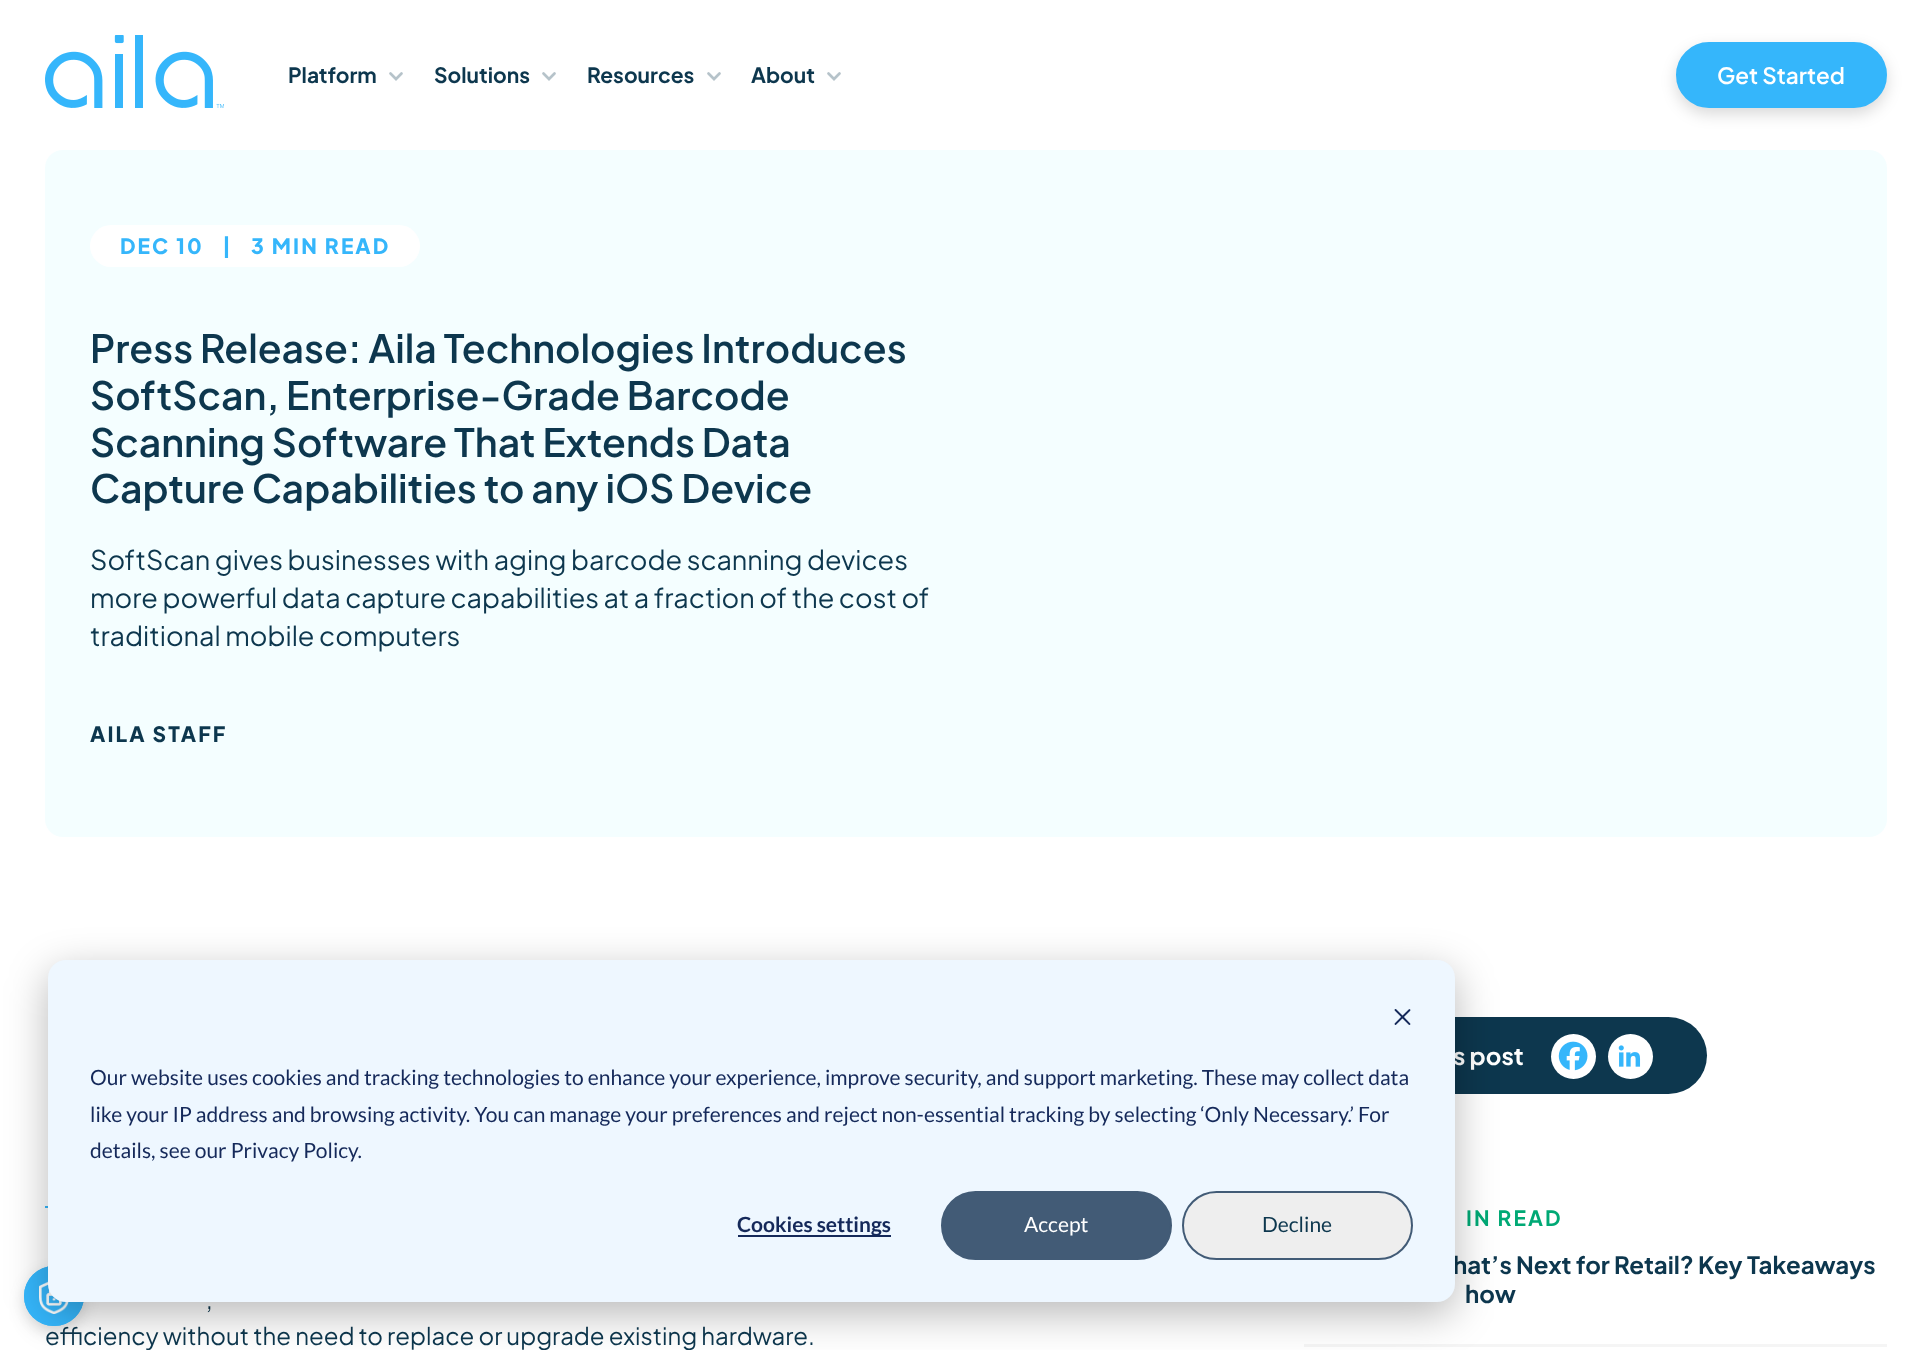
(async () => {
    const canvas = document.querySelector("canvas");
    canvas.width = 1932;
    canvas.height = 1350;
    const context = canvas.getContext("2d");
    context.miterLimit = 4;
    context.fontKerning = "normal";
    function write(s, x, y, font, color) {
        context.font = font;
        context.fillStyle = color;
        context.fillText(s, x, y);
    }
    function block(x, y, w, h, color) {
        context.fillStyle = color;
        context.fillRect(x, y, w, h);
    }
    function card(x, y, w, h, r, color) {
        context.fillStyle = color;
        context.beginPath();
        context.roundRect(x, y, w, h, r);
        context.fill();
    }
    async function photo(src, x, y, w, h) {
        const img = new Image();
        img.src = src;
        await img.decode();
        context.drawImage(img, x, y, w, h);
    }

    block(0, 0, 1932, 1350, "rgb(255, 255, 255)");
    await photo("media/1.png", 45, 35, 179, 73);
    write("Platform", 288, 83, "bold 21px Plus Jakarta Sans", "rgb(13, 55, 78)");
    context.beginPath();
    context.moveTo(390.5, 73.5);
    context.lineTo(396, 79);
    context.lineTo(401.5, 73.5);
    context.strokeStyle = "rgb(182, 195, 202)";
    context.lineWidth = 2.7;
    context.lineCap = "round";
    context.stroke();
    write("Solutions", 434, 83, "bold 21px Plus Jakarta Sans", "rgb(13, 55, 78)");
    context.beginPath();
    context.moveTo(543.5, 73.5);
    context.lineTo(549, 79);
    context.lineTo(554.5, 73.5);
    context.stroke();
    write("Resources", 587, 83, "bold 21px Plus Jakarta Sans", "rgb(13, 55, 78)");
    context.beginPath();
    context.moveTo(708.5, 73.5);
    context.lineTo(714, 79);
    context.lineTo(719.5, 73.5);
    context.stroke();
    write("About", 751, 83, "bold 21px Plus Jakarta Sans", "rgb(13, 55, 78)");
    context.beginPath();
    context.moveTo(828.5, 73.5);
    context.lineTo(834, 79);
    context.lineTo(839.5, 73.5);
    context.stroke();
    context.fillStyle = "rgba(0, 0, 0, 0.15)";
    context.filter = "blur(7.5px)";
    context.beginPath();
    context.roundRect(1676, 48, 211, 66, 33);
    context.fill();
    context.filter = "none";
    context.fillStyle = "rgb(53, 182, 251)";
    context.beginPath();
    context.roundRect(1677.5, 43.5, 208, 63, 31.5);
    context.fill();
    context.strokeStyle = "rgb(53, 182, 251)";
    context.lineWidth = 3;
    context.stroke();
    write("Get Started", 1717, 84, "600 22.5px Plus Jakarta Sans", "rgb(255, 255, 255)");
    card(45, 150, 1842, 687, 18, "rgb(244, 254, 255)");
    card(90, 225, 330, 42, 21, "rgb(255, 255, 255)");
    context.letterSpacing = "2.1px";
    write("DEC 10", 120, 254, "800 21px Plus Jakarta Sans", "rgb(53, 182, 251)");
    write("|", 222, 254, "800 21px Plus Jakarta Sans", "rgb(53, 182, 251)");
    write("3 MIN READ", 251, 254, "800 21px Plus Jakarta Sans", "rgb(53, 182, 251)");
    context.letterSpacing = "0px";
    write("Press Release: Aila Technologies Introduces", 90, 363, "600 39px Plus Jakarta Sans", "rgb(13, 55, 78)");
    write("SoftScan, Enterprise-Grade Barcode", 90, 410, "600 39px Plus Jakarta Sans", "rgb(13, 55, 78)");
    write("Scanning Software That Extends Data", 90, 457, "600 39px Plus Jakarta Sans", "rgb(13, 55, 78)");
    write("Capture Capabilities to any iOS Device", 90, 503, "600 39px Plus Jakarta Sans", "rgb(13, 55, 78)");
    write("SoftScan gives businesses with aging barcode scanning devices", 90, 570, "27px Plus Jakarta Sans", "rgb(13, 55, 78)");
    write("more powerful data capture capabilities at a fraction of the cost of", 90, 608, "27px Plus Jakarta Sans", "rgb(13, 55, 78)");
    write("traditional mobile computers", 90, 646, "27px Plus Jakarta Sans", "rgb(13, 55, 78)");
    context.letterSpacing = "2.1px";
    write("AILA STAFF", 90, 742, "800 21px Plus Jakarta Sans", "rgb(13, 55, 78)");
    card(1304, 1017, 403, 77, 38.5, "rgb(13, 55, 78)");
    context.letterSpacing = "0px";
    write("s post", 1453, 1065, "bold 24px Plus Jakarta Sans", "rgb(255, 255, 255)");
    context.beginPath();
    context.arc(1573.5, 1056.5, 22.5, 0, Math.PI * 2);
    context.fill();
    await photo("media/2.png", 1558, 1041, 30, 30);
    context.beginPath();
    context.arc(1630.5, 1056.5, 22.5, 0, Math.PI * 2);
    context.fill();
    await photo("media/3.png", 1618, 1045, 23, 22);
    block(1304, 1344, 583, 3, "rgb(245, 245, 245)");
    context.letterSpacing = "2.1px";
    write("IN READ", 1466, 1226, "bold 21px Plus Jakarta Sans", "rgb(0, 169, 117)");
    context.letterSpacing = "0px";
    write("hat’s Next for Retail? Key Takeaways", 1453, 1274, "bold 24px Plus Jakarta Sans", "rgb(13, 55, 78)");
    write("how", 1465, 1303, "bold 24px Plus Jakarta Sans", "rgb(13, 55, 78)");
    block(45, 1206, 3, 2, "rgb(53, 182, 251)");
    write(",", 206, 1309, "24px Plus Jakarta Sans", "rgb(13, 55, 78)");
    write("efficiency without the need to replace or upgrade existing hardware.", 45, 1345, "24px Plus Jakarta Sans", "rgb(13, 55, 78)");
    context.fillStyle = "rgba(0, 0, 0, 0.15)";
    context.filter = "blur(7.5px)";
    context.beginPath();
    context.roundRect(24, 1272, 60, 60, 30);
    context.fill();
    context.filter = "none";
    context.fillStyle = "rgb(53, 182, 251)";
    context.beginPath();
    context.arc(54, 1296, 30, 0, Math.PI * 2);
    context.fill();
    await photo("media/5.png", 39, 1281, 30, 33);
    context.beginPath();
    context.arc(54, 1296, 28.5, 0, Math.PI * 2);
    context.stroke();
    context.fillStyle = "rgba(0, 0, 0, 0.28)";
    context.filter = "blur(21px)";
    context.beginPath();
    context.roundRect(48, 972, 1407, 342, 18);
    context.fill();
    context.filter = "none";
    card(48, 960, 1407, 342, 18, "rgb(238, 247, 255)");
    await photo("media/4.png", 1394, 1009, 17, 16);
    write("Our website uses cookies and tracking technologies to enhance your experience, improve security, and support marketing. These may collect data", 90, 1085, "21px Lato", "rgb(21, 41, 90)");
    write("like your IP address and browsing activity. You can manage your preferences and reject non-essential tracking by selecting ‘Only Necessary.’ For", 90, 1122, "21px Lato", "rgb(21, 41, 90)");
    write("details, see our Privacy Policy.", 90, 1158, "21px Lato", "rgb(21, 41, 90)");
    block(738, 1235, 153, 2, "rgb(21, 41, 90)");
    write("Cookies settings", 737, 1232, "bold 21px Lato", "rgb(21, 41, 90)");
    context.fillStyle = "rgb(66, 91, 118)";
    context.beginPath();
    context.roundRect(942, 1192, 229, 67, 33.5);
    context.fill();
    context.strokeStyle = "rgb(66, 91, 118)";
    context.lineWidth = 2;
    context.stroke();
    write("Accept", 1024, 1232, "21px Lato", "rgb(255, 255, 255)");
    context.fillStyle = "rgb(238, 238, 238)";
    context.beginPath();
    context.roundRect(1183, 1192, 229, 67, 33.5);
    context.fill();
    context.stroke();
    write("Decline", 1262, 1232, "21px Lato", "rgb(13, 55, 78)");
})();
